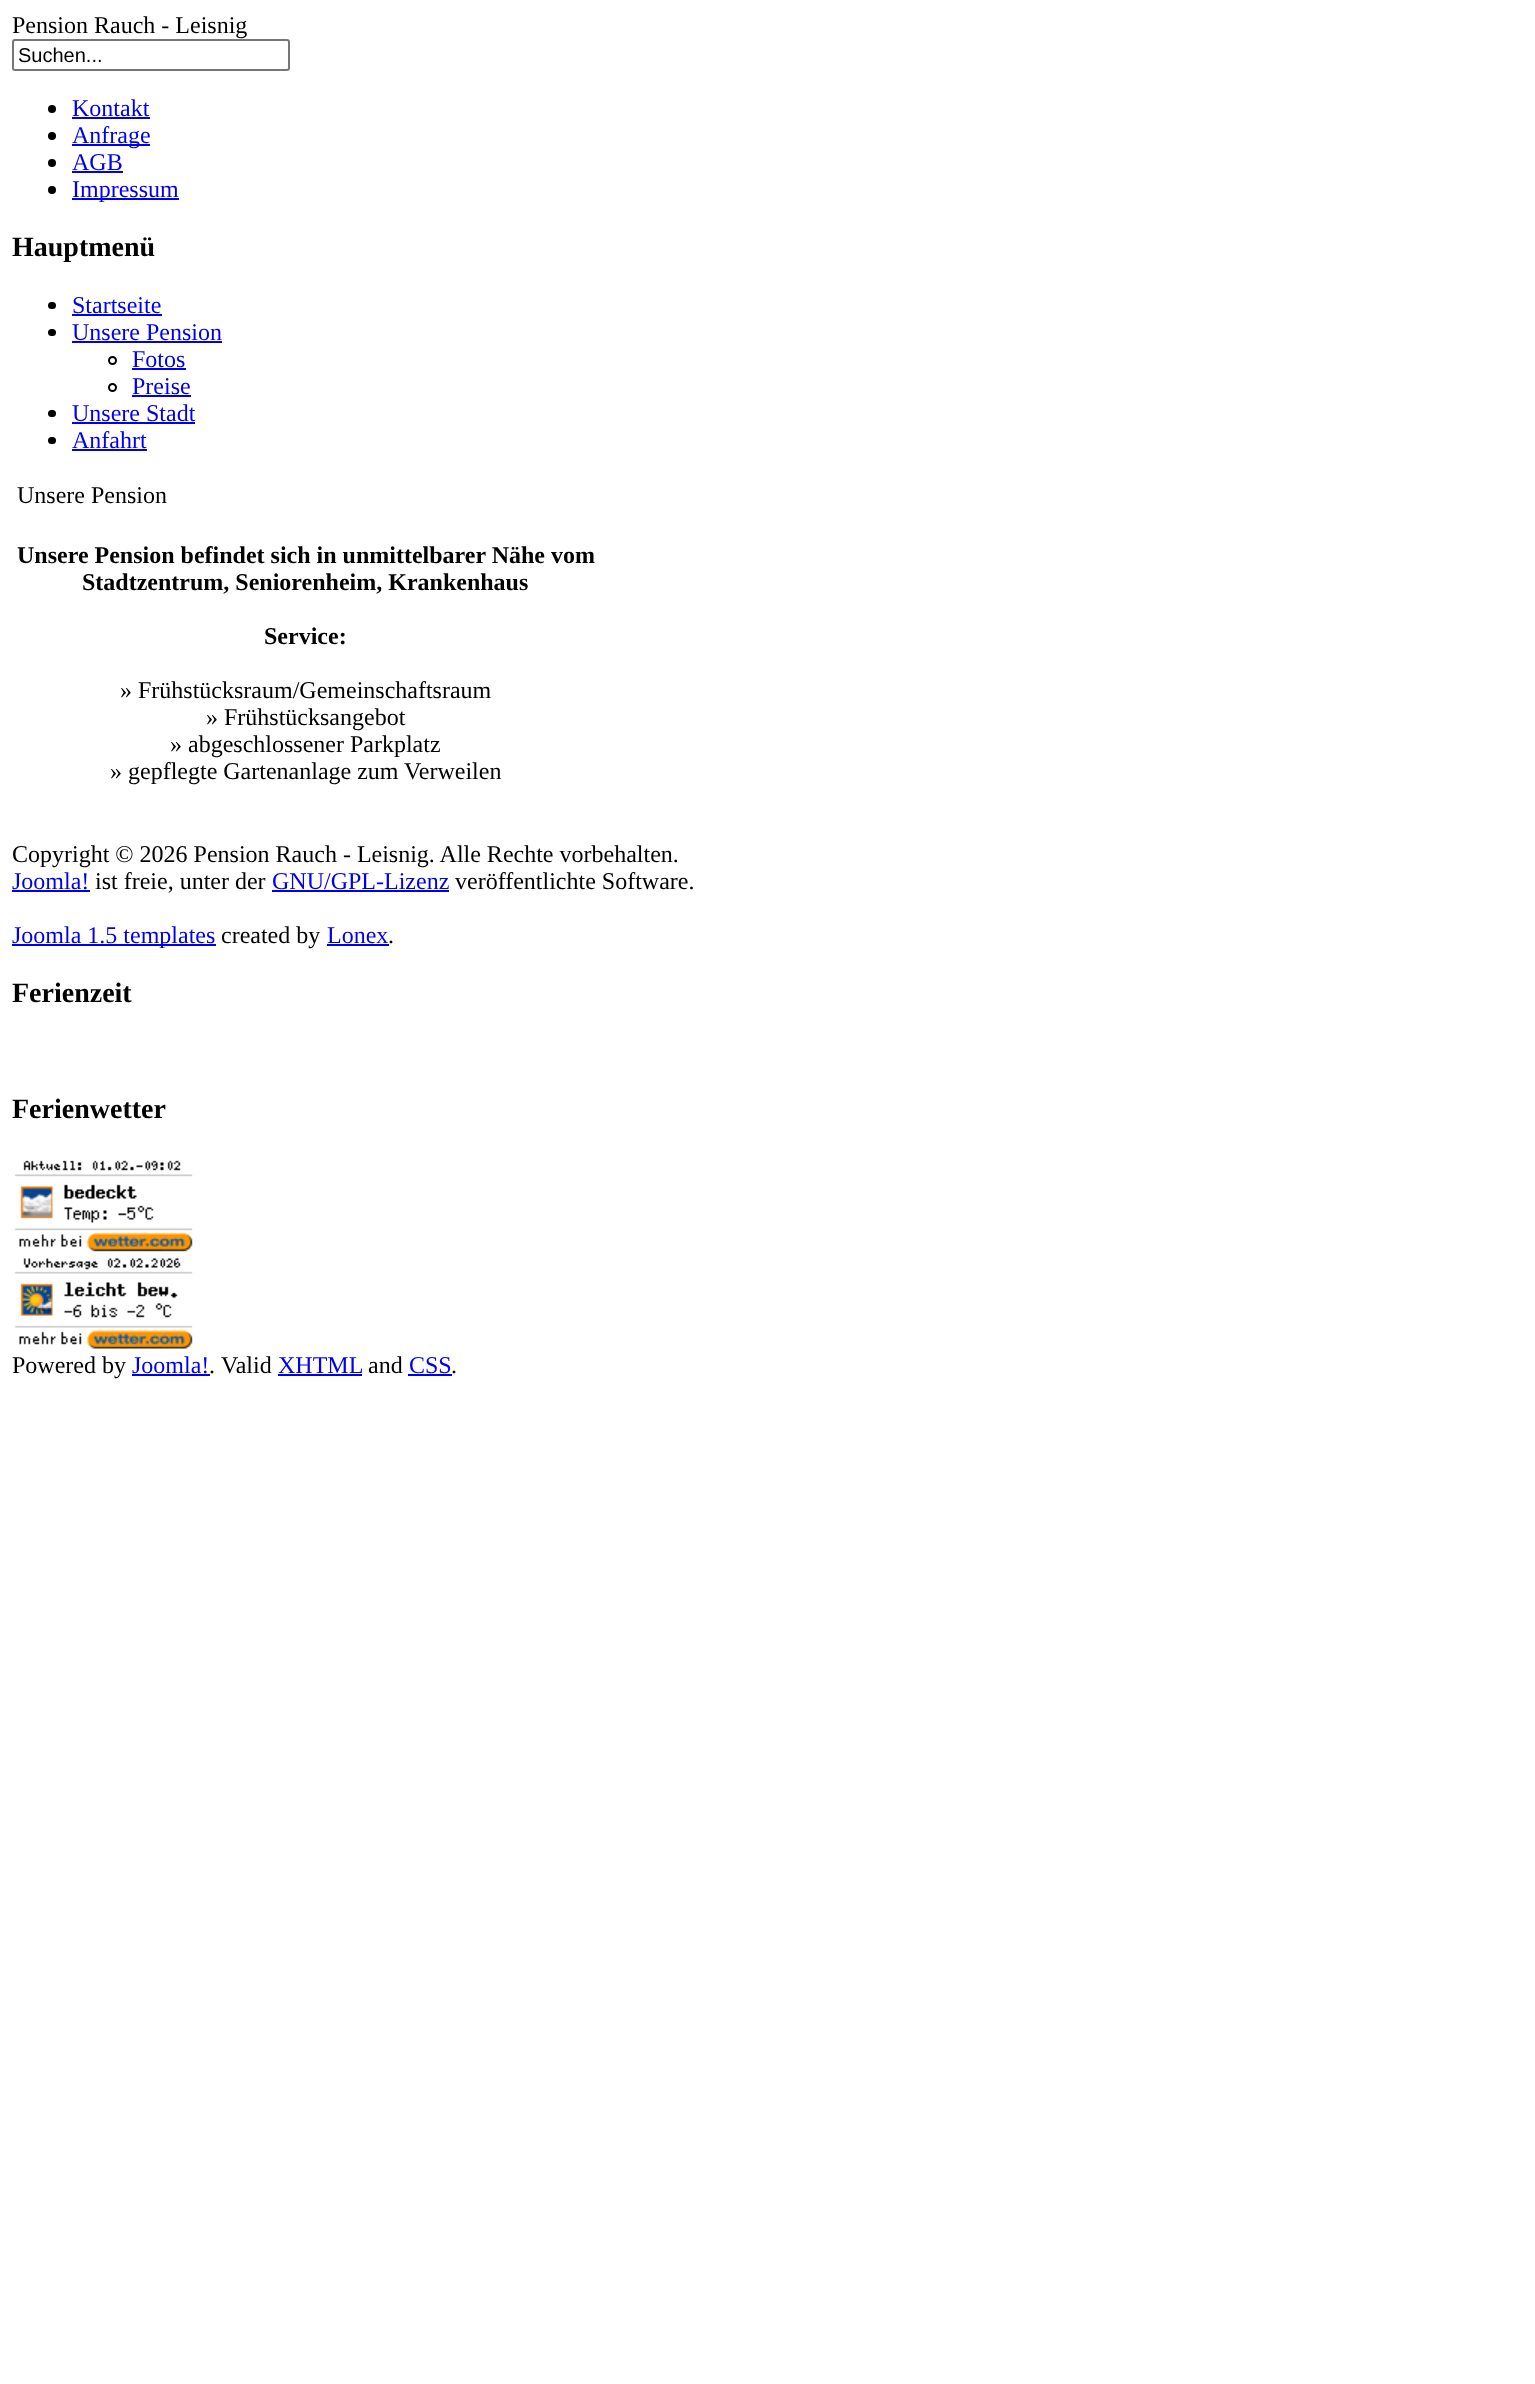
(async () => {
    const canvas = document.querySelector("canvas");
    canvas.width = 1535;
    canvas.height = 2384;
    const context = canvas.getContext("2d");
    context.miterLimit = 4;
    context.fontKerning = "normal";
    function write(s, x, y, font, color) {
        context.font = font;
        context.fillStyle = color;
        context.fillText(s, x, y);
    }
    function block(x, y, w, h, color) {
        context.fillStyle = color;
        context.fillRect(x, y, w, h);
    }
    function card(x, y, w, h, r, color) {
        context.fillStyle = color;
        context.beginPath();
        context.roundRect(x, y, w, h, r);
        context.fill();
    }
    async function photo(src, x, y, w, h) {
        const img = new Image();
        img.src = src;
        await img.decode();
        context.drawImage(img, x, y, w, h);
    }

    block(0, 0, 1535, 2384, "rgb(255, 255, 255)");
    write("Pension Rauch - Leisnig", 12, 33, "24px Liberation Serif", "rgb(0, 0, 0)");
    context.beginPath();
    context.roundRect(13, 40, 276, 30, 2);
    context.strokeStyle = "rgb(118, 118, 118)";
    context.lineWidth = 2;
    context.stroke();
    write("Suchen...", 18, 62, "20px Liberation Sans", "rgb(0, 0, 0)");
    context.beginPath();
    context.arc(52, 109, 4, 0, Math.PI * 2);
    context.fill();
    write("Kontakt", 72, 116, "24px Liberation Serif", "rgb(0, 0, 238)");
    block(72, 117, 78, 2, "rgb(0, 0, 238)");
    context.fillStyle = "rgb(0, 0, 0)";
    context.beginPath();
    context.arc(52, 136, 4, 0, Math.PI * 2);
    context.fill();
    block(72, 144, 78, 2, "rgb(0, 0, 238)");
    write("Anfrage", 72, 143, "24px Liberation Serif", "rgb(0, 0, 238)");
    context.fillStyle = "rgb(0, 0, 0)";
    context.beginPath();
    context.arc(52, 163, 4, 0, Math.PI * 2);
    context.fill();
    write("AGB", 72, 170, "24px Liberation Serif", "rgb(0, 0, 238)");
    block(72, 171, 51, 2, "rgb(0, 0, 238)");
    context.fillStyle = "rgb(0, 0, 0)";
    context.beginPath();
    context.arc(52, 190, 4, 0, Math.PI * 2);
    context.fill();
    block(72, 198, 107, 2, "rgb(0, 0, 238)");
    write("Impressum", 72, 197, "24px Liberation Serif", "rgb(0, 0, 238)");
    write("Hauptmenü", 12, 256, "bold 28px Liberation Serif", "rgb(0, 0, 0)");
    card(48, 302, 8, 7, 3.5, "rgb(0, 0, 0)");
    write("Startseite", 72, 313, "24px Liberation Serif", "rgb(0, 0, 238)");
    block(72, 314, 90, 2, "rgb(0, 0, 238)");
    card(48, 329, 8, 7, 3.5, "rgb(0, 0, 0)");
    write("Unsere Pension", 72, 340, "24px Liberation Serif", "rgb(0, 0, 238)");
    block(72, 341, 150, 2, "rgb(0, 0, 238)");
    context.beginPath();
    context.arc(112.5, 360.5, 3.5, 0, Math.PI * 2);
    context.strokeStyle = "rgb(0, 0, 0)";
    context.stroke();
    write("Fotos", 132, 367, "24px Liberation Serif", "rgb(0, 0, 238)");
    block(132, 368, 54, 2, "rgb(0, 0, 238)");
    context.beginPath();
    context.arc(112.5, 387.5, 3.5, 0, Math.PI * 2);
    context.stroke();
    write("Preise", 132, 394, "24px Liberation Serif", "rgb(0, 0, 238)");
    block(132, 395, 59, 2, "rgb(0, 0, 238)");
    card(48, 410, 8, 7, 3.5, "rgb(0, 0, 0)");
    write("Unsere Stadt", 72, 421, "24px Liberation Serif", "rgb(0, 0, 238)");
    block(72, 422, 123, 2, "rgb(0, 0, 238)");
    card(48, 437, 8, 7, 3.5, "rgb(0, 0, 0)");
    write("Anfahrt", 72, 448, "24px Liberation Serif", "rgb(0, 0, 238)");
    block(72, 449, 75, 2, "rgb(0, 0, 238)");
    write("Unsere Pension", 17, 503, "24px Liberation Serif", "rgb(0, 0, 0)");
    write("Unsere Pension befindet sich in unmittelbarer Nähe vom", 17, 563, "bold 24px Liberation Serif", "rgb(0, 0, 0)");
    write("Stadtzentrum, Seniorenheim, Krankenhaus", 82, 590, "bold 24px Liberation Serif", "rgb(0, 0, 0)");
    write("Service:", 264, 644, "bold 24px Liberation Serif", "rgb(0, 0, 0)");
    write("» Frühstücksraum/Gemeinschaftsraum", 120, 698, "24px Liberation Serif", "rgb(0, 0, 0)");
    write("» Frühstücksangebot", 206, 725, "24px Liberation Serif", "rgb(0, 0, 0)");
    write("» abgeschlossener Parkplatz", 170, 752, "24px Liberation Serif", "rgb(0, 0, 0)");
    write("» gepflegte Gartenanlage zum Verweilen", 110, 779, "24px Liberation Serif", "rgb(0, 0, 0)");
    write("Copyright © 2026 Pension Rauch - Leisnig. Alle Rechte vorbehalten.", 12, 862, "24px Liberation Serif", "rgb(0, 0, 0)");
    write("Joomla!", 12, 889, "24px Liberation Serif", "rgb(0, 0, 238)");
    block(12, 890, 78, 2, "rgb(0, 0, 238)");
    write("ist freie, unter der", 95, 889, "24px Liberation Serif", "rgb(0, 0, 0)");
    write("GNU/GPL-Lizenz", 272, 889, "24px Liberation Serif", "rgb(0, 0, 238)");
    block(272, 890, 177, 2, "rgb(0, 0, 238)");
    write("veröffentlichte Software.", 455, 889, "24px Liberation Serif", "rgb(0, 0, 0)");
    block(12, 944, 204, 2, "rgb(0, 0, 238)");
    write("Joomla 1.5 templates", 12, 943, "24px Liberation Serif", "rgb(0, 0, 238)");
    write("created by", 221, 943, "24px Liberation Serif", "rgb(0, 0, 0)");
    write("Lonex", 327, 943, "24px Liberation Serif", "rgb(0, 0, 238)");
    block(327, 944, 62, 2, "rgb(0, 0, 238)");
    write(".", 388, 943, "24px Liberation Serif", "rgb(0, 0, 0)");
    write("Ferienzeit", 12, 1002, "bold 28px Liberation Serif", "rgb(0, 0, 0)");
    write("Ferienwetter", 12, 1118, "bold 28px Liberation Serif", "rgb(0, 0, 0)");
    await photo("media/1.png", 14, 1160, 179, 92);
    await photo("media/2.png", 14, 1258, 179, 91);
    write("Powered by", 12, 1373, "24px Liberation Serif", "rgb(0, 0, 0)");
    write("Joomla!", 132, 1373, "24px Liberation Serif", "rgb(0, 0, 238)");
    block(132, 1374, 78, 2, "rgb(0, 0, 238)");
    write(".", 209, 1373, "24px Liberation Serif", "rgb(0, 0, 0)");
    write("Valid", 221, 1373, "24px Liberation Serif", "rgb(0, 0, 0)");
    write("XHTML", 278, 1373, "24px Liberation Serif", "rgb(0, 0, 238)");
    block(278, 1374, 84, 2, "rgb(0, 0, 238)");
    write("and", 368, 1373, "24px Liberation Serif", "rgb(0, 0, 0)");
    write("CSS", 409, 1373, "24px Liberation Serif", "rgb(0, 0, 238)");
    block(408, 1374, 44, 2, "rgb(0, 0, 238)");
    write(".", 451, 1373, "24px Liberation Serif", "rgb(0, 0, 0)");
})();
